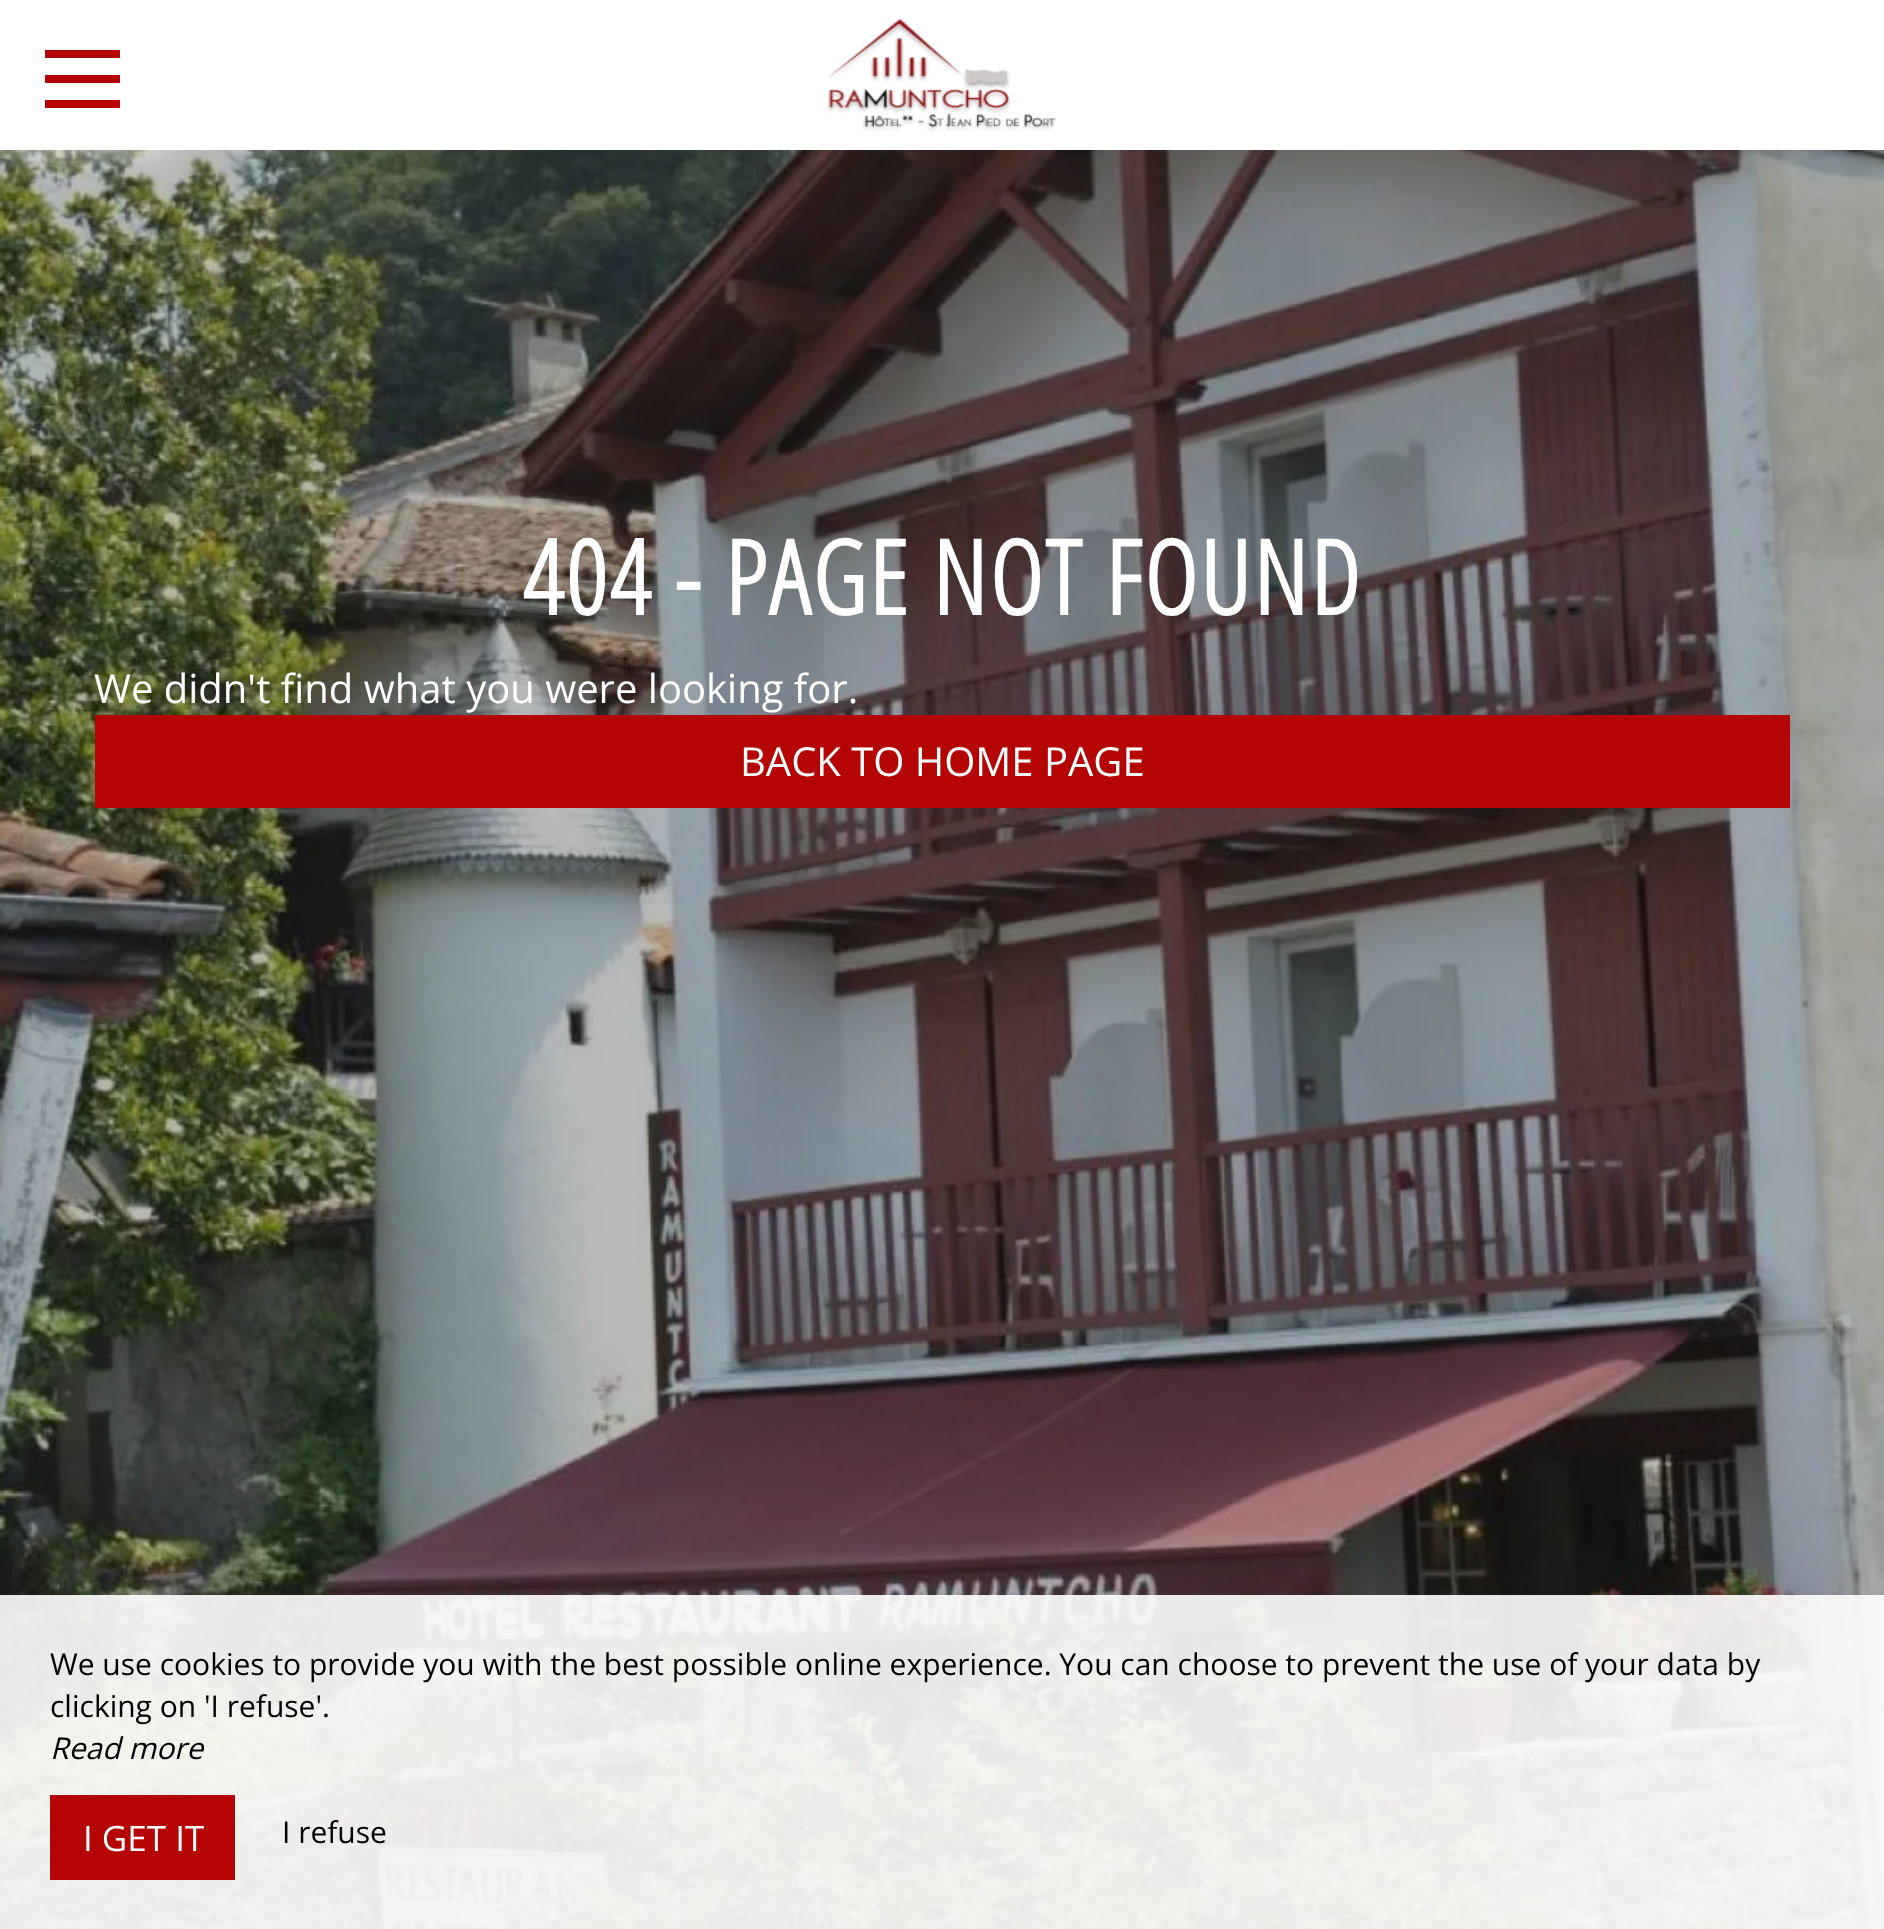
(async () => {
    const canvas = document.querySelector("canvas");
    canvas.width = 1884;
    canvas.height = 1929;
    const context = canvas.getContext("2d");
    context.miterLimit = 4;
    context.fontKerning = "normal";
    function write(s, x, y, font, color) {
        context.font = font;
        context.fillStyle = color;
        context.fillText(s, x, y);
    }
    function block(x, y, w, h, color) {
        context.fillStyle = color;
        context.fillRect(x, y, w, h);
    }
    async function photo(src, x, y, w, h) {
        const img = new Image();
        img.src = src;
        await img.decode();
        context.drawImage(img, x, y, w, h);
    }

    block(0, 0, 1884, 1929, "rgb(255, 255, 255)");
    await photo("media/2.png", 0, 150, 1884, 1779);
    context.save();
    context.beginPath();
    context.moveTo(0, 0);
    context.lineTo(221, 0);
    context.lineTo(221, 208);
    context.lineTo(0, 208);
    context.closePath();
    context.moveTo(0, 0);
    context.lineTo(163, 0);
    context.lineTo(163, 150);
    context.lineTo(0, 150);
    context.closePath();
    context.clip("evenodd");
    context.fillStyle = "rgba(255, 255, 255, 0.9)";
    context.filter = "blur(19px)";
    context.beginPath();
    context.rect(0, 0, 163, 150);
    context.fill();
    context.filter = "none";
    context.restore();
    block(45, 50, 75, 8, "rgb(180, 4, 4)");
    block(45, 75, 75, 8, "rgb(180, 4, 4)");
    block(45, 100, 75, 8, "rgb(180, 4, 4)");
    await photo("media/1.png", 827, 18, 229, 114);
    context.letterSpacing = "2.5px";
    write("404 - PAGE NOT FOUND", 522, 615, "bold 102.5px Open Sans Condensed", "rgb(255, 255, 255)");
    context.letterSpacing = "0px";
    write("We didn't find what you were looking for.", 94, 703, "40px Open Sans", "rgb(255, 255, 255)");
    block(95, 715, 1695, 93, "rgb(180, 4, 4)");
    write("BACK TO HOME PAGE", 740, 776, "40px Open Sans", "rgb(255, 255, 255)");
    block(0, 1595, 1884, 334, "rgba(255, 255, 255, 0.9)");
    write("We use cookies to provide you with the best possible online experience. You can choose to prevent the use of your data by", 50, 1675, "30px Open Sans", "rgb(0, 0, 0)");
    write("clicking on 'I refuse'.", 50, 1717, "30px Open Sans", "rgb(0, 0, 0)");
    write("Read more", 50, 1759, "italic 30px Open Sans", "rgb(0, 0, 0)");
    block(50, 1795, 185, 85, "rgb(180, 4, 4)");
    write("I GET IT", 83, 1851, "35px Open Sans", "rgb(255, 255, 255)");
    write("I refuse", 282, 1843, "30px Open Sans", "rgb(0, 0, 0)");
})();
